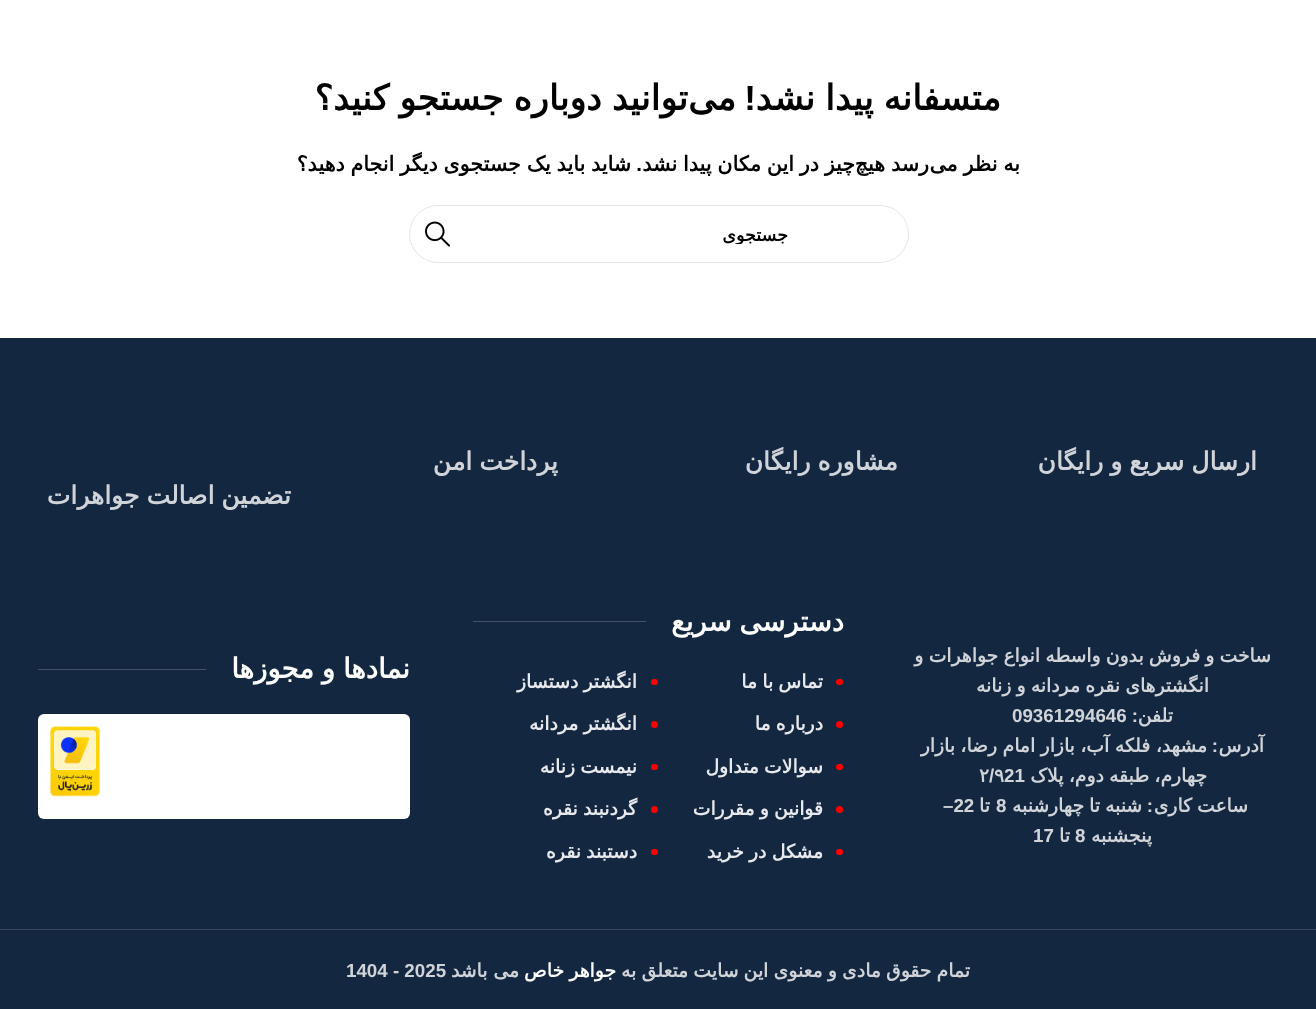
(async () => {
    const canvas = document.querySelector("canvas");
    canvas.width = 1316;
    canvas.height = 1009;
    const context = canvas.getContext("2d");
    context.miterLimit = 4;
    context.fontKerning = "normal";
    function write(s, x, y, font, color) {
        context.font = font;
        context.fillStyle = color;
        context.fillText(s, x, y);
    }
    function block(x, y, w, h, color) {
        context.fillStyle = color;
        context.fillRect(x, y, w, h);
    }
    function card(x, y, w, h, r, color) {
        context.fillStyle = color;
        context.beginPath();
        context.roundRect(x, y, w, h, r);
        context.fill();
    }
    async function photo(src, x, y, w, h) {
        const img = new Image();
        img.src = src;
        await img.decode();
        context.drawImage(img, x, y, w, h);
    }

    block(0, 0, 1316, 1009, "rgb(255, 255, 255)");
    context.wordSpacing = "-1px";
    context.direction = "rtl";
    write("متسفانه پیدا نشد", 1001, 110, "bold 35px DejaVu Sans", "rgb(0, 0, 0)");
    context.wordSpacing = "0px";
    write("!", 756, 110, "bold 35px Liberation Sans", "rgb(0, 0, 0)");
    write("می", 736, 110, "bold 35px DejaVu Sans", "rgb(0, 0, 0)");
    context.wordSpacing = "-1px";
    write("توانید دوباره جستجو کنید؟", 688, 110, "bold 35px DejaVu Sans", "rgb(0, 0, 0)");
    context.wordSpacing = "-0.75px";
    write("به نظر می", 1020, 171, "bold 20.6px DejaVu Sans", "rgb(0, 0, 0)");
    write("رسد هیچ", 929, 171, "bold 20.6px DejaVu Sans", "rgb(0, 0, 0)");
    write("چیز در این مکان پیدا نشد", 855, 171, "bold 20.6px DejaVu Sans", "rgb(0, 0, 0)");
    context.wordSpacing = "0px";
    write(".", 642, 171, "bold 20.6px Liberation Sans", "rgb(0, 0, 0)");
    context.wordSpacing = "-0.75px";
    write("شاید باید یک جستجوی دیگر انجام دهید؟", 631, 171, "bold 20.6px DejaVu Sans", "rgb(0, 0, 0)");
    context.beginPath();
    context.roundRect(409.5, 205.5, 499, 57, 28.5);
    context.strokeStyle = "rgb(230, 230, 230)";
    context.stroke();
    context.save();
    context.beginPath();
    context.rect(505, 224, 384, 20);
    context.clip();
    context.wordSpacing = "0px";
    write("جستجوی", 788, 241, "bold 17.5px DejaVu Sans", "rgb(0, 0, 0)");
    context.restore();
    await photo("media/1.png", 425, 221, 25, 26);
    block(0, 338, 1316, 671, "rgb(20, 39, 64)");
    context.wordSpacing = "-1px";
    write("ارسال سریع و رایگان", 1257, 470, "bold 25px DejaVu Sans", "rgb(208, 212, 217)");
    write("مشاوره رایگان", 898, 470, "bold 25px DejaVu Sans", "rgb(208, 212, 217)");
    write("پرداخت امن", 558, 470, "bold 25px DejaVu Sans", "rgb(208, 212, 217)");
    write("تضمین اصالت جواهرات", 291, 504, "bold 25px DejaVu Sans", "rgb(208, 212, 217)");
    context.wordSpacing = "-0.75px";
    write("ساخت و فروش بدون واسطه انواع جواهرات و", 1271, 662, "bold 18.75px DejaVu Sans", "rgb(208, 212, 217)");
    write("انگشترهای نقره مردانه و زنانه", 1209, 692, "bold 18.75px DejaVu Sans", "rgb(208, 212, 217)");
    context.wordSpacing = "0px";
    write("تلفن", 1173, 722, "bold 18.75px DejaVu Sans", "rgb(208, 212, 217)");
    write(":", 1138, 722, "bold 18.75px Liberation Sans", "rgb(208, 212, 217)");
    context.direction = "ltr";
    write("09361294646", 1012, 722, "bold 18.75px Liberation Sans", "rgb(208, 212, 217)");
    context.direction = "rtl";
    write("آدرس", 1264, 752, "bold 18.75px DejaVu Sans", "rgb(208, 212, 217)");
    write(":", 1218, 752, "bold 18.75px Liberation Sans", "rgb(208, 212, 217)");
    context.wordSpacing = "-0.5px";
    write("مشهد، فلکه آب، بازار امام رضا، بازار", 1207, 752, "bold 18.75px DejaVu Sans", "rgb(208, 212, 217)");
    context.wordSpacing = "-0.75px";
    write("چهارم، طبقه دوم، پلاک", 1207, 782, "bold 18.75px DejaVu Sans", "rgb(208, 212, 217)");
    context.wordSpacing = "0px";
    context.direction = "ltr";
    write("21", 1004, 782, "bold 18.75px Liberation Sans", "rgb(208, 212, 217)");
    write("۹", 994, 782, "bold 18.75px DejaVu Sans", "rgb(208, 212, 217)");
    write("/", 989, 782, "bold 18.75px Liberation Sans", "rgb(208, 212, 217)");
    write("۲", 979, 782, "bold 18.75px DejaVu Sans", "rgb(208, 212, 217)");
    context.wordSpacing = "-1px";
    context.direction = "rtl";
    write("ساعت کاری", 1248, 812, "bold 18.75px DejaVu Sans", "rgb(208, 212, 217)");
    context.wordSpacing = "0px";
    write(":", 1153, 812, "bold 18.75px Liberation Sans", "rgb(208, 212, 217)");
    context.wordSpacing = "-1px";
    write("شنبه تا چهارشنبه", 1142, 812, "bold 18.75px DejaVu Sans", "rgb(208, 212, 217)");
    context.wordSpacing = "0px";
    context.direction = "ltr";
    write("8", 996, 812, "bold 18.75px Liberation Sans", "rgb(208, 212, 217)");
    context.direction = "rtl";
    write("تا", 990, 812, "bold 18.75px DejaVu Sans", "rgb(208, 212, 217)");
    context.direction = "ltr";
    write("–22", 943, 812, "bold 18.75px Liberation Sans", "rgb(208, 212, 217)");
    context.direction = "rtl";
    write("پنجشنبه", 1152, 842, "bold 18.75px DejaVu Sans", "rgb(208, 212, 217)");
    context.direction = "ltr";
    write("8", 1075, 842, "bold 18.75px Liberation Sans", "rgb(208, 212, 217)");
    context.direction = "rtl";
    write("تا", 1070, 842, "bold 18.75px DejaVu Sans", "rgb(208, 212, 217)");
    context.direction = "ltr";
    write("17", 1033, 842, "bold 18.75px Liberation Sans", "rgb(208, 212, 217)");
    context.wordSpacing = "-1px";
    context.direction = "rtl";
    write("دسترسی سریع", 844, 631, "bold 27.5px DejaVu Sans", "rgb(255, 255, 255)");
    block(473, 621, 173, 1, "rgb(67, 82, 102)");
    card(836, 679, 7, 6, 3, "rgb(255, 0, 0)");
    context.wordSpacing = "-0.75px";
    write("تماس با ما", 823, 688, "bold 18.75px DejaVu Sans", "rgb(232, 233, 236)");
    context.fillStyle = "rgb(255, 0, 0)";
    context.beginPath();
    context.arc(839.5, 724.5, 3.5, 0, Math.PI * 2);
    context.fill();
    write("درباره ما", 823, 730, "bold 18.75px DejaVu Sans", "rgb(232, 233, 236)");
    card(836, 764, 7, 6, 3, "rgb(255, 0, 0)");
    write("سوالات متداول", 823, 773, "bold 18.75px DejaVu Sans", "rgb(232, 233, 236)");
    context.fillStyle = "rgb(255, 0, 0)";
    context.beginPath();
    context.arc(839.5, 809.5, 3.5, 0, Math.PI * 2);
    context.fill();
    write("قوانین و مقررات", 823, 815, "bold 18.75px DejaVu Sans", "rgb(232, 233, 236)");
    card(836, 849, 7, 6, 3, "rgb(255, 0, 0)");
    write("مشکل در خرید", 823, 858, "bold 18.75px DejaVu Sans", "rgb(232, 233, 236)");
    card(651, 679, 7, 6, 3, "rgb(255, 0, 0)");
    write("انگشتر دستساز", 637, 688, "bold 18.75px DejaVu Sans", "rgb(232, 233, 236)");
    context.fillStyle = "rgb(255, 0, 0)";
    context.beginPath();
    context.arc(654.5, 724.5, 3.5, 0, Math.PI * 2);
    context.fill();
    write("انگشتر مردانه", 637, 730, "bold 18.75px DejaVu Sans", "rgb(232, 233, 236)");
    card(651, 764, 7, 6, 3, "rgb(255, 0, 0)");
    write("نیمست زنانه", 637, 773, "bold 18.75px DejaVu Sans", "rgb(232, 233, 236)");
    context.fillStyle = "rgb(255, 0, 0)";
    context.beginPath();
    context.arc(654.5, 809.5, 3.5, 0, Math.PI * 2);
    context.fill();
    write("گردنبند نقره", 637, 815, "bold 18.75px DejaVu Sans", "rgb(232, 233, 236)");
    card(651, 849, 7, 6, 3, "rgb(255, 0, 0)");
    write("دستبند نقره", 637, 858, "bold 18.75px DejaVu Sans", "rgb(232, 233, 236)");
    context.wordSpacing = "0px";
    write("نمادها", 410, 678, "bold 27.5px DejaVu Sans", "rgb(255, 255, 255)");
    context.wordSpacing = "-1px";
    write("و مجوزها", 335, 678, "bold 27.5px DejaVu Sans", "rgb(255, 255, 255)");
    block(38, 669, 168, 1, "rgb(67, 82, 102)");
    card(38, 714, 372, 105, 6, "rgb(255, 255, 255)");
    await photo("media/2.png", 50, 726, 50, 71);
    block(0, 929, 1316, 1, "rgb(55, 71, 93)");
    context.wordSpacing = "-0.75px";
    write("تمام حقوق مادی و معنوی این سایت متعلق به", 970, 977, "bold 18.75px DejaVu Sans", "rgb(208, 212, 217)");
    write("جواهر خاص", 616, 977, "bold 18.75px DejaVu Sans", "rgb(255, 255, 255)");
    context.wordSpacing = "0px";
    write("می باشد", 519, 977, "bold 18.75px DejaVu Sans", "rgb(208, 212, 217)");
    context.direction = "ltr";
    write("1404 - 2025", 346, 977, "bold 18.75px Liberation Sans", "rgb(208, 212, 217)");
})();
